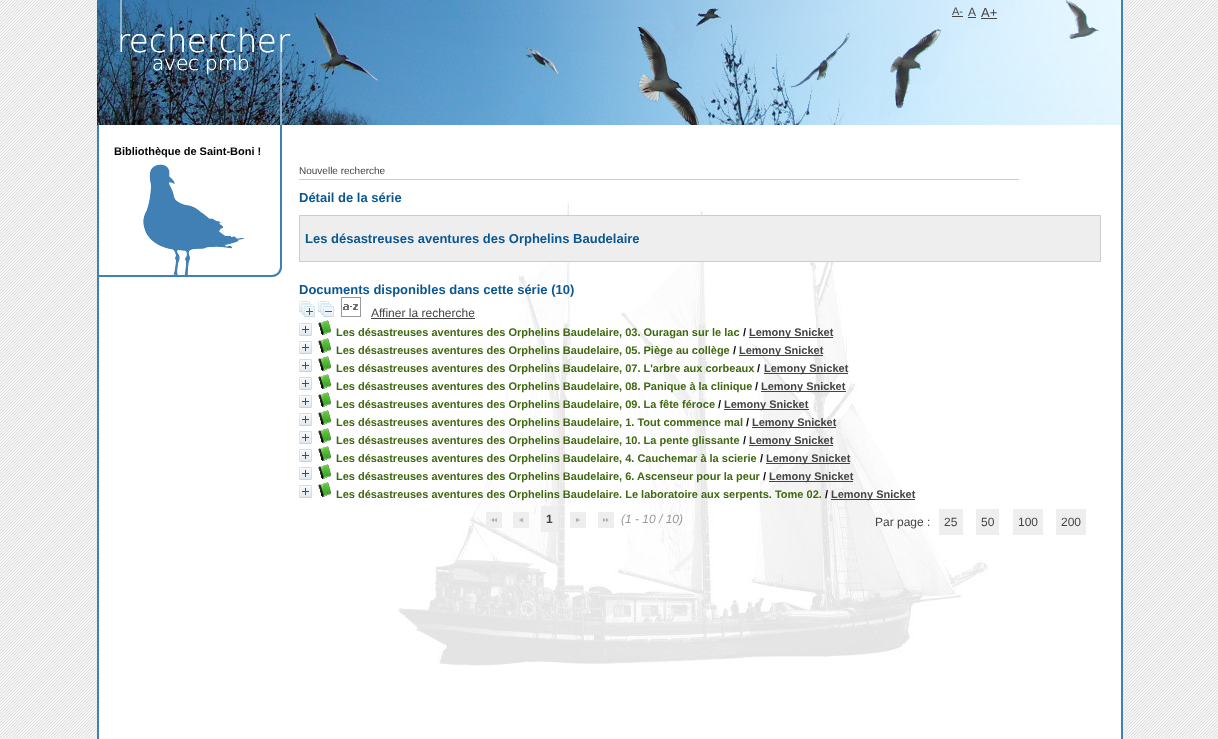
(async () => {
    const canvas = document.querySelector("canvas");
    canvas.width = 1218;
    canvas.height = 739;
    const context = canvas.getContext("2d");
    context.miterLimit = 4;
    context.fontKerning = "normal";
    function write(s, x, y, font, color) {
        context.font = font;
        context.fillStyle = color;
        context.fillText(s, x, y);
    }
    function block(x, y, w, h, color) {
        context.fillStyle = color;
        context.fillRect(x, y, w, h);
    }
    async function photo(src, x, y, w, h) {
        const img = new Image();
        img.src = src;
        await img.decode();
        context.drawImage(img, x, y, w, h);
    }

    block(0, 0, 1218, 739, "rgb(255, 255, 255)");
    await photo("media/1.png", 0, 0, 1218, 739);
    await photo("media/4.png", 97, 0, 1024, 125);
    write("A-", 952, 15, "11px Liberation Sans", "rgb(68, 68, 68)");
    block(952, 16, 11, 1, "rgb(68, 68, 68)");
    write("A", 968, 16, "12px Liberation Sans", "rgb(68, 68, 68)");
    block(968, 17, 8, 1, "rgb(68, 68, 68)");
    write("A+", 981, 17, "13px Liberation Sans", "rgb(68, 68, 68)");
    block(981, 18, 16, 1, "rgb(68, 68, 68)");
    block(99, 125, 1022, 614, "rgb(255, 255, 255)");
    await photo("media/2.png", 99, 164, 183, 113);
    block(280, 125, 2, 42, "rgb(65, 128, 181)");
    write("Bibliothèque de Saint-Boni !", 114, 155, "bold 11px Liberation Sans", "rgb(0, 0, 0)");
    await photo("media/3.png", 398, 202, 590, 464);
    block(1121, 0, 2, 739, "rgb(65, 128, 181)");
    block(97, 125, 2, 614, "rgb(65, 128, 181)");
    block(299, 179, 720, 1, "rgb(204, 204, 204)");
    write("Nouvelle recherche", 299, 174, "10px Liberation Sans", "rgb(68, 68, 68)");
    write("Détail de la série", 299, 202, "bold 13px Liberation Sans", "rgb(11, 87, 145)");
    context.fillStyle = "rgb(238, 238, 238)";
    context.beginPath();
    context.rect(299.5, 215.5, 801, 46);
    context.fill();
    context.strokeStyle = "rgb(204, 204, 204)";
    context.stroke();
    write("Les désastreuses aventures des Orphelins Baudelaire", 305, 243, "bold 13px Liberation Sans", "rgb(11, 87, 145)");
    write("Documents disponibles dans cette série (10)", 299, 294, "bold 13px Liberation Sans", "rgb(11, 87, 145)");
    await photo("media/5.png", 299, 301, 16, 16);
    await photo("media/6.png", 318, 301, 16, 16);
    await photo("media/7.png", 341, 297, 20, 20);
    write("Affiner la recherche", 371, 317, "12px Liberation Sans", "rgb(68, 68, 68)");
    block(371, 318, 104, 1, "rgb(68, 68, 68)");
    await photo("media/8.png", 299, 323, 13, 13);
    await photo("media/9.png", 318, 320, 13, 15);
    write("Les désastreuses aventures des Orphelins Baudelaire, 03. Ouragan sur le lac", 336, 336, "bold 11px Liberation Sans", "rgb(63, 104, 15)");
    write("/", 743, 336, "bold 11px Liberation Sans", "rgb(0, 0, 0)");
    block(749, 337, 84, 1, "rgb(68, 68, 68)");
    write("Lemony Snicket", 749, 336, "bold 11px Liberation Sans", "rgb(68, 68, 68)");
    await photo("media/8.png", 299, 341, 13, 13);
    await photo("media/9.png", 318, 338, 13, 15);
    write("Les désastreuses aventures des Orphelins Baudelaire, 05. Piège au collège", 336, 354, "bold 11px Liberation Sans", "rgb(63, 104, 15)");
    write("/", 733, 354, "bold 11px Liberation Sans", "rgb(0, 0, 0)");
    block(739, 355, 84, 1, "rgb(68, 68, 68)");
    write("Lemony Snicket", 739, 354, "bold 11px Liberation Sans", "rgb(68, 68, 68)");
    await photo("media/8.png", 299, 359, 13, 13);
    await photo("media/9.png", 318, 356, 13, 15);
    write("Les désastreuses aventures des Orphelins Baudelaire, 07. L'arbre aux corbeaux", 336, 372, "bold 11px Liberation Sans", "rgb(63, 104, 15)");
    write("/", 757, 372, "bold 11px Liberation Sans", "rgb(0, 0, 0)");
    block(764, 373, 84, 1, "rgb(68, 68, 68)");
    write("Lemony Snicket", 764, 372, "bold 11px Liberation Sans", "rgb(68, 68, 68)");
    await photo("media/8.png", 299, 377, 13, 13);
    await photo("media/9.png", 318, 374, 13, 15);
    write("Les désastreuses aventures des Orphelins Baudelaire, 08. Panique à la clinique", 336, 390, "bold 11px Liberation Sans", "rgb(63, 104, 15)");
    write("/", 755, 390, "bold 11px Liberation Sans", "rgb(0, 0, 0)");
    block(761, 391, 85, 1, "rgb(68, 68, 68)");
    write("Lemony Snicket", 761, 390, "bold 11px Liberation Sans", "rgb(68, 68, 68)");
    await photo("media/8.png", 299, 395, 13, 13);
    await photo("media/9.png", 318, 392, 13, 15);
    write("Les désastreuses aventures des Orphelins Baudelaire, 09. La fête féroce", 336, 408, "bold 11px Liberation Sans", "rgb(63, 104, 15)");
    write("/", 718, 408, "bold 11px Liberation Sans", "rgb(0, 0, 0)");
    block(724, 409, 85, 1, "rgb(68, 68, 68)");
    write("Lemony Snicket", 724, 408, "bold 11px Liberation Sans", "rgb(68, 68, 68)");
    await photo("media/8.png", 299, 413, 13, 13);
    await photo("media/9.png", 318, 410, 13, 15);
    write("Les désastreuses aventures des Orphelins Baudelaire, 1. Tout commence mal", 336, 426, "bold 11px Liberation Sans", "rgb(63, 104, 15)");
    write("/", 746, 426, "bold 11px Liberation Sans", "rgb(0, 0, 0)");
    block(752, 427, 84, 1, "rgb(68, 68, 68)");
    write("Lemony Snicket", 752, 426, "bold 11px Liberation Sans", "rgb(68, 68, 68)");
    await photo("media/8.png", 299, 431, 13, 13);
    await photo("media/9.png", 318, 428, 13, 15);
    write("Les désastreuses aventures des Orphelins Baudelaire, 10. La pente glissante", 336, 444, "bold 11px Liberation Sans", "rgb(63, 104, 15)");
    write("/", 743, 444, "bold 11px Liberation Sans", "rgb(0, 0, 0)");
    block(749, 445, 84, 1, "rgb(68, 68, 68)");
    write("Lemony Snicket", 749, 444, "bold 11px Liberation Sans", "rgb(68, 68, 68)");
    await photo("media/8.png", 299, 449, 13, 13);
    await photo("media/9.png", 318, 446, 13, 15);
    write("Les désastreuses aventures des Orphelins Baudelaire, 4. Cauchemar à la scierie", 336, 462, "bold 11px Liberation Sans", "rgb(63, 104, 15)");
    write("/", 760, 462, "bold 11px Liberation Sans", "rgb(0, 0, 0)");
    block(766, 463, 84, 1, "rgb(68, 68, 68)");
    write("Lemony Snicket", 766, 462, "bold 11px Liberation Sans", "rgb(68, 68, 68)");
    await photo("media/8.png", 299, 467, 13, 13);
    await photo("media/9.png", 318, 464, 13, 15);
    write("Les désastreuses aventures des Orphelins Baudelaire, 6. Ascenseur pour la peur", 336, 480, "bold 11px Liberation Sans", "rgb(63, 104, 15)");
    write("/", 763, 480, "bold 11px Liberation Sans", "rgb(0, 0, 0)");
    block(769, 481, 84, 1, "rgb(68, 68, 68)");
    write("Lemony Snicket", 769, 480, "bold 11px Liberation Sans", "rgb(68, 68, 68)");
    await photo("media/8.png", 299, 485, 13, 13);
    await photo("media/9.png", 318, 482, 13, 15);
    write("Les désastreuses aventures des Orphelins Baudelaire. Le laboratoire aux serpents. Tome 02.", 336, 498, "bold 11px Liberation Sans", "rgb(63, 104, 15)");
    write("/", 825, 498, "bold 11px Liberation Sans", "rgb(0, 0, 0)");
    block(831, 499, 84, 1, "rgb(68, 68, 68)");
    write("Lemony Snicket", 831, 498, "bold 11px Liberation Sans", "rgb(68, 68, 68)");
    block(486, 512, 16, 16, "rgb(238, 238, 238)");
    await photo("media/10.png", 491, 518, 6, 5);
    block(513, 512, 16, 16, "rgb(238, 238, 238)");
    await photo("media/11.png", 519, 518, 5, 5);
    block(541, 506, 17, 26, "rgb(238, 238, 238)");
    write("1", 546, 523, "bold 12px Liberation Sans", "rgb(68, 68, 68)");
    block(570, 512, 16, 16, "rgb(238, 238, 238)");
    await photo("media/12.png", 575, 518, 5, 5);
    block(598, 512, 16, 16, "rgb(238, 238, 238)");
    await photo("media/13.png", 603, 518, 6, 5);
    write("(1 - 10 / 10)", 621, 523, "italic 12px Liberation Sans", "rgb(153, 153, 153)");
    write("Par page :", 875, 526, "12px Liberation Sans", "rgb(68, 68, 68)");
    block(939, 509, 24, 26, "rgb(238, 238, 238)");
    write("25", 944, 526, "12px Liberation Sans", "rgb(68, 68, 68)");
    block(976, 509, 23, 26, "rgb(238, 238, 238)");
    write("50", 981, 526, "12px Liberation Sans", "rgb(68, 68, 68)");
    block(1013, 509, 30, 26, "rgb(238, 238, 238)");
    write("100", 1018, 526, "12px Liberation Sans", "rgb(68, 68, 68)");
    block(1056, 509, 30, 26, "rgb(238, 238, 238)");
    write("200", 1061, 526, "12px Liberation Sans", "rgb(68, 68, 68)");
})();
